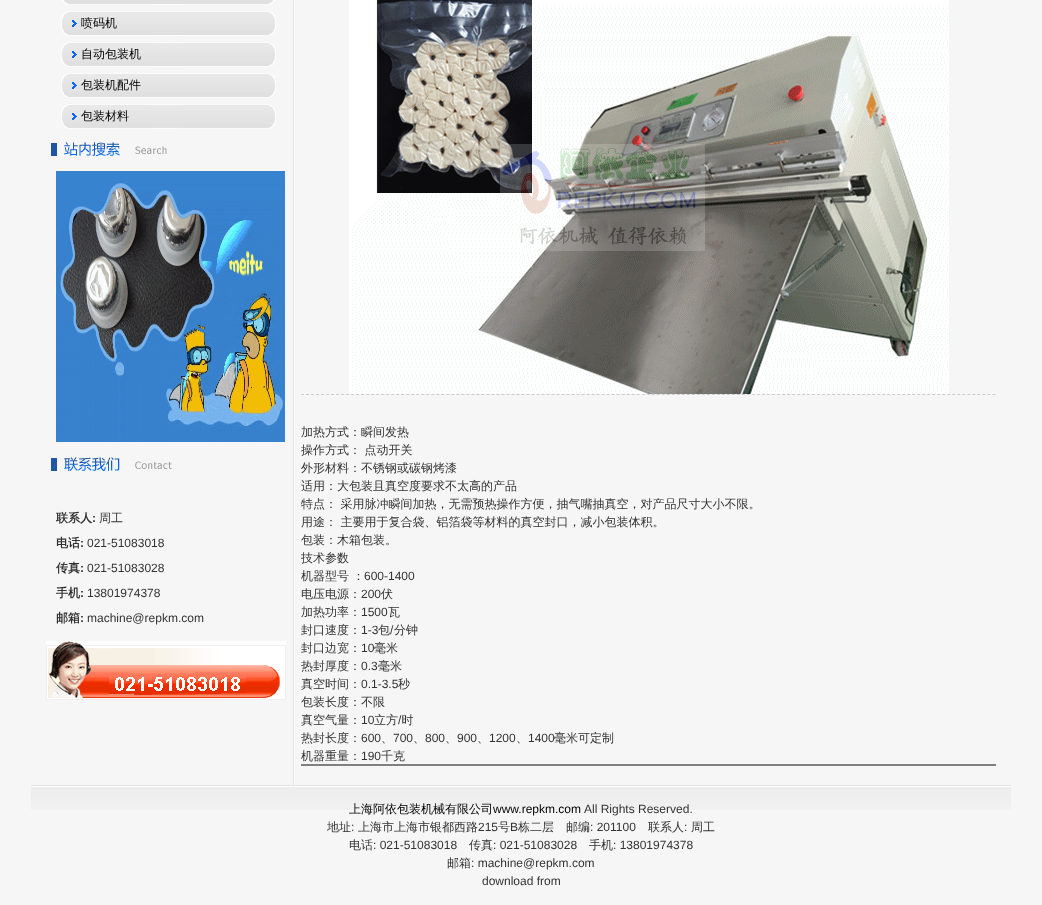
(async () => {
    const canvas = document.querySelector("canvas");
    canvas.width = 1042;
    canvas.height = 905;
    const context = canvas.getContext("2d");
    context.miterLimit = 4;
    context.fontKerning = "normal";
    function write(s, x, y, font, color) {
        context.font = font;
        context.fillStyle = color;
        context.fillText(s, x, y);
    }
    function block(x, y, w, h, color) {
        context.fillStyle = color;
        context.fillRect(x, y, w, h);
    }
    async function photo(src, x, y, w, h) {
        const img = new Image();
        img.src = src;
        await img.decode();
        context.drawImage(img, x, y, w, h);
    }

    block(0, 0, 1042, 905, "rgb(246, 246, 246)");
    await photo("media/1.png", 293, 0, 2, 785);
    await photo("media/2.png", 62, 0, 213, 5);
    await photo("media/3.png", 61, 11, 215, 25);
    write("喷码机", 81, 27, "500 12px WenQuanYi Zen Hei", "rgb(0, 0, 0)");
    await photo("media/3.png", 61, 42, 215, 25);
    write("自动包装机", 81, 58, "500 12px WenQuanYi Zen Hei", "rgb(0, 0, 0)");
    await photo("media/3.png", 61, 73, 215, 25);
    write("包装机配件", 81, 89, "500 12px WenQuanYi Zen Hei", "rgb(0, 0, 0)");
    await photo("media/3.png", 61, 104, 215, 25);
    write("包装材料", 81, 120, "500 12px WenQuanYi Zen Hei", "rgb(0, 0, 0)");
    await photo("media/4.png", 51, 142, 116, 14);
    await photo("media/5.png", 56, 171, 229, 271);
    await photo("media/6.png", 51, 457, 121, 14);
    write("联系人", 56, 522, "bold 12px WenQuanYi Zen Hei", "rgb(51, 51, 51)");
    write(":", 92, 522, "bold 12px Liberation Sans", "rgb(51, 51, 51)");
    write("周工", 99, 522, "500 12px WenQuanYi Zen Hei", "rgb(51, 51, 51)");
    write("电话", 56, 547, "bold 12px WenQuanYi Zen Hei", "rgb(51, 51, 51)");
    write(":", 80, 547, "bold 12px Liberation Sans", "rgb(51, 51, 51)");
    write("021-51083018", 87, 547, "12px Liberation Sans", "rgb(51, 51, 51)");
    write("传真", 56, 572, "bold 12px WenQuanYi Zen Hei", "rgb(51, 51, 51)");
    write(":", 80, 572, "bold 12px Liberation Sans", "rgb(51, 51, 51)");
    write("021-51083028", 87, 572, "12px Liberation Sans", "rgb(51, 51, 51)");
    write("手机", 56, 597, "bold 12px WenQuanYi Zen Hei", "rgb(51, 51, 51)");
    write(":", 80, 597, "bold 12px Liberation Sans", "rgb(51, 51, 51)");
    write("13801974378", 87, 597, "12px Liberation Sans", "rgb(51, 51, 51)");
    write("邮箱", 56, 622, "bold 12px WenQuanYi Zen Hei", "rgb(51, 51, 51)");
    write(":", 80, 622, "bold 12px Liberation Sans", "rgb(51, 51, 51)");
    write("machine@repkm.com", 87, 622, "12px Liberation Sans", "rgb(51, 51, 51)");
    await photo("media/7.png", 46, 641, 240, 59);
    context.beginPath();
    context.moveTo(301, 394.5);
    context.lineTo(996, 394.5);
    context.strokeStyle = "rgb(204, 204, 204)";
    context.setLineDash([3, 2.01]);
    context.stroke();
    await photo("media/8.png", 349, 0, 600, 394);
    write("加热方式：瞬间发热", 301, 436, "500 12px WenQuanYi Zen Hei", "rgb(51, 51, 51)");
    write("操作方式： 点动开关", 301, 454, "500 12px WenQuanYi Zen Hei", "rgb(51, 51, 51)");
    write("外形材料：不锈钢或碳钢烤漆", 301, 472, "500 12px WenQuanYi Zen Hei", "rgb(51, 51, 51)");
    write("适用：大包装且真空度要求不太高的产品", 301, 490, "500 12px WenQuanYi Zen Hei", "rgb(51, 51, 51)");
    write("特点： 采用脉冲瞬间加热，无需预热操作方便，抽气嘴抽真空，对产品尺寸大小不限。", 301, 508, "500 12px WenQuanYi Zen Hei", "rgb(51, 51, 51)");
    write("用途： 主要用于复合袋、铝箔袋等材料的真空封口，减小包装体积。", 301, 526, "500 12px WenQuanYi Zen Hei", "rgb(51, 51, 51)");
    write("包装：木箱包装。", 301, 544, "500 12px WenQuanYi Zen Hei", "rgb(51, 51, 51)");
    write("技术参数", 301, 562, "500 12px WenQuanYi Zen Hei", "rgb(51, 51, 51)");
    write("机器型号 ：", 301, 580, "500 12px WenQuanYi Zen Hei", "rgb(51, 51, 51)");
    write("600-1400", 364, 580, "12px Liberation Sans", "rgb(51, 51, 51)");
    write("电压电源：", 301, 598, "500 12px WenQuanYi Zen Hei", "rgb(51, 51, 51)");
    write("200", 361, 598, "12px Liberation Sans", "rgb(51, 51, 51)");
    write("伏", 381, 598, "500 12px WenQuanYi Zen Hei", "rgb(51, 51, 51)");
    write("加热功率：", 301, 616, "500 12px WenQuanYi Zen Hei", "rgb(51, 51, 51)");
    write("1500", 361, 616, "12px Liberation Sans", "rgb(51, 51, 51)");
    write("瓦", 388, 616, "500 12px WenQuanYi Zen Hei", "rgb(51, 51, 51)");
    write("封口速度：", 301, 634, "500 12px WenQuanYi Zen Hei", "rgb(51, 51, 51)");
    write("1-3", 361, 634, "12px Liberation Sans", "rgb(51, 51, 51)");
    write("包", 378, 634, "500 12px WenQuanYi Zen Hei", "rgb(51, 51, 51)");
    write("/", 390, 634, "12px Liberation Sans", "rgb(51, 51, 51)");
    write("分钟", 394, 634, "500 12px WenQuanYi Zen Hei", "rgb(51, 51, 51)");
    write("封口边宽：", 301, 652, "500 12px WenQuanYi Zen Hei", "rgb(51, 51, 51)");
    write("10", 361, 652, "12px Liberation Sans", "rgb(51, 51, 51)");
    write("毫米", 374, 652, "500 12px WenQuanYi Zen Hei", "rgb(51, 51, 51)");
    write("热封厚度：", 301, 670, "500 12px WenQuanYi Zen Hei", "rgb(51, 51, 51)");
    write("0.3", 361, 670, "12px Liberation Sans", "rgb(51, 51, 51)");
    write("毫米", 378, 670, "500 12px WenQuanYi Zen Hei", "rgb(51, 51, 51)");
    write("真空时间：", 301, 688, "500 12px WenQuanYi Zen Hei", "rgb(51, 51, 51)");
    write("0.1-3.5", 361, 688, "12px Liberation Sans", "rgb(51, 51, 51)");
    write("秒", 398, 688, "500 12px WenQuanYi Zen Hei", "rgb(51, 51, 51)");
    write("包装长度：不限", 301, 706, "500 12px WenQuanYi Zen Hei", "rgb(51, 51, 51)");
    write("真空气量：", 301, 724, "500 12px WenQuanYi Zen Hei", "rgb(51, 51, 51)");
    write("10", 361, 724, "12px Liberation Sans", "rgb(51, 51, 51)");
    write("立方 时", 374, 724, "500 12px WenQuanYi Zen Hei", "rgb(51, 51, 51)");
    write("/", 398, 724, "12px Liberation Sans", "rgb(51, 51, 51)");
    write("热封长度：", 301, 742, "500 12px WenQuanYi Zen Hei", "rgb(51, 51, 51)");
    write("600", 361, 742, "12px Liberation Sans", "rgb(51, 51, 51)");
    write("、", 381, 742, "500 12px WenQuanYi Zen Hei", "rgb(51, 51, 51)");
    write("700", 393, 742, "12px Liberation Sans", "rgb(51, 51, 51)");
    write("、", 413, 742, "500 12px WenQuanYi Zen Hei", "rgb(51, 51, 51)");
    write("800", 425, 742, "12px Liberation Sans", "rgb(51, 51, 51)");
    write("、", 445, 742, "500 12px WenQuanYi Zen Hei", "rgb(51, 51, 51)");
    write("900", 457, 742, "12px Liberation Sans", "rgb(51, 51, 51)");
    write("、", 477, 742, "500 12px WenQuanYi Zen Hei", "rgb(51, 51, 51)");
    write("1200", 489, 742, "12px Liberation Sans", "rgb(51, 51, 51)");
    write("、", 516, 742, "500 12px WenQuanYi Zen Hei", "rgb(51, 51, 51)");
    write("1400", 528, 742, "12px Liberation Sans", "rgb(51, 51, 51)");
    write("毫米可定制", 554, 742, "500 12px WenQuanYi Zen Hei", "rgb(51, 51, 51)");
    write("机器重量：", 301, 760, "500 12px WenQuanYi Zen Hei", "rgb(51, 51, 51)");
    write("190", 361, 760, "12px Liberation Sans", "rgb(51, 51, 51)");
    write("千克", 381, 760, "500 12px WenQuanYi Zen Hei", "rgb(51, 51, 51)");
    block(301, 764, 695, 2, "rgb(128, 128, 128)");
    await photo("media/9.png", 31, 785, 980, 25);
    write("上海阿依包装机械有限公司", 349, 813, "500 12px WenQuanYi Zen Hei", "rgb(0, 0, 0)");
    write("www.repkm.com", 493, 813, "12px Liberation Sans", "rgb(0, 0, 0)");
    write("All Rights Reserved.", 584, 813, "12px Liberation Sans", "rgb(51, 51, 51)");
    write("地址", 327, 831, "500 12px WenQuanYi Zen Hei", "rgb(51, 51, 51)");
    write(":", 351, 831, "12px Liberation Sans", "rgb(51, 51, 51)");
    write("上海市上海市银都西路", 358, 831, "500 12px WenQuanYi Zen Hei", "rgb(51, 51, 51)");
    write("215", 478, 831, "12px Liberation Sans", "rgb(51, 51, 51)");
    write("号", 498, 831, "500 12px WenQuanYi Zen Hei", "rgb(51, 51, 51)");
    write("B", 510, 831, "12px Liberation Sans", "rgb(51, 51, 51)");
    write("栋二层", 518, 831, "500 12px WenQuanYi Zen Hei", "rgb(51, 51, 51)");
    write("邮编", 566, 831, "500 12px WenQuanYi Zen Hei", "rgb(51, 51, 51)");
    write(": 201100", 590, 831, "12px Liberation Sans", "rgb(51, 51, 51)");
    write("联系人", 648, 831, "500 12px WenQuanYi Zen Hei", "rgb(51, 51, 51)");
    write(":", 684, 831, "12px Liberation Sans", "rgb(51, 51, 51)");
    write("周工", 691, 831, "500 12px WenQuanYi Zen Hei", "rgb(51, 51, 51)");
    write("电话", 349, 849, "500 12px WenQuanYi Zen Hei", "rgb(51, 51, 51)");
    write(": 021-51083018", 373, 849, "12px Liberation Sans", "rgb(51, 51, 51)");
    write("传真", 469, 849, "500 12px WenQuanYi Zen Hei", "rgb(51, 51, 51)");
    write(": 021-51083028", 493, 849, "12px Liberation Sans", "rgb(51, 51, 51)");
    write("手机", 589, 849, "500 12px WenQuanYi Zen Hei", "rgb(51, 51, 51)");
    write(": 13801974378", 613, 849, "12px Liberation Sans", "rgb(51, 51, 51)");
    write("邮箱", 447, 867, "500 12px WenQuanYi Zen Hei", "rgb(51, 51, 51)");
    write(": machine@repkm.com", 471, 867, "12px Liberation Sans", "rgb(51, 51, 51)");
    write("download from", 482, 885, "12px Liberation Sans", "rgb(51, 51, 51)");
})();
